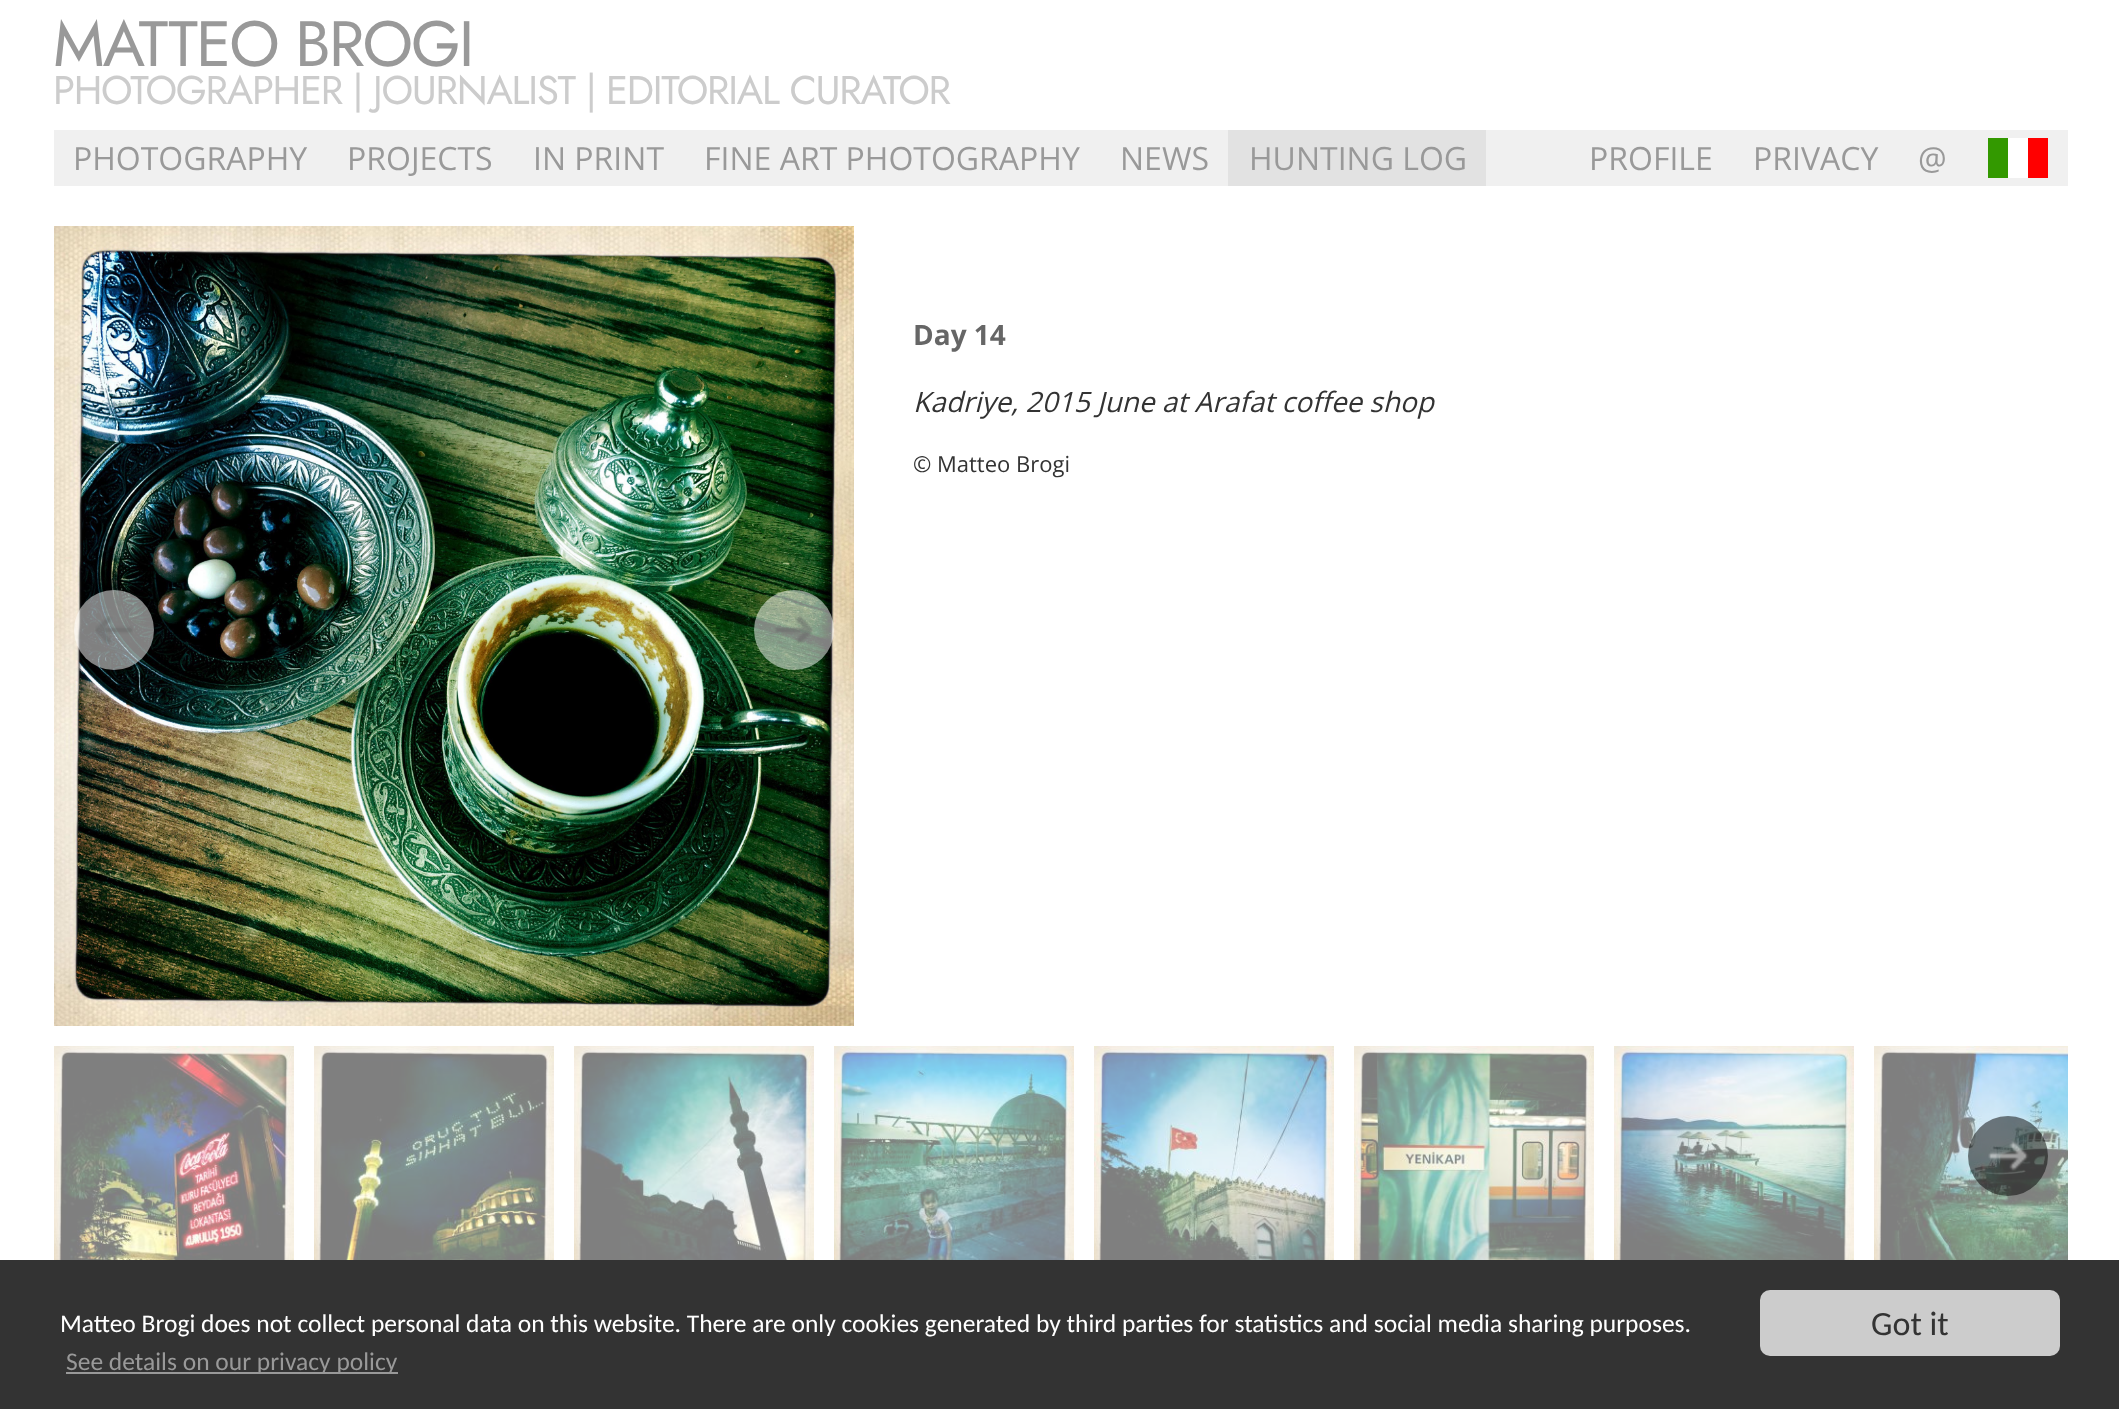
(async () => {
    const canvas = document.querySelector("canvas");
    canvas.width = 2119;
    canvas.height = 1409;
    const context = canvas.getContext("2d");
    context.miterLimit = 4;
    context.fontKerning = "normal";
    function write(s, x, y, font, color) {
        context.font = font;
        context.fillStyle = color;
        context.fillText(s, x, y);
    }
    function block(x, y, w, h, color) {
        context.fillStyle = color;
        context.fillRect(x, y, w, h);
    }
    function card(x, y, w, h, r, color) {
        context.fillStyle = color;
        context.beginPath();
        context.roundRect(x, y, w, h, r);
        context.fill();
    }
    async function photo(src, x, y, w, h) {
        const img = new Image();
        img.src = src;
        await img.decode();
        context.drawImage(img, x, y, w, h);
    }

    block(0, 0, 2119, 1409, "rgb(255, 255, 255)");
    context.letterSpacing = "-2px";
    write("MATTEO BROGI", 53, 66, "64px Jost", "rgb(153, 153, 153)");
    context.letterSpacing = "-1.25px";
    write("PHOTOGRAPHER | JOURNALIST | EDITORIAL CURATOR", 53, 104, "40px Jost", "rgb(204, 204, 204)");
    block(54, 130, 2014, 56, "rgb(240, 240, 240)");
    context.letterSpacing = "0px";
    write("PHOTOGRAPHY", 73, 170, "32px Open Sans", "rgb(153, 153, 153)");
    write("PROJECTS", 347, 170, "32px Open Sans", "rgb(153, 153, 153)");
    write("IN PRINT", 533, 170, "32px Open Sans", "rgb(153, 153, 153)");
    write("FINE ART PHOTOGRAPHY", 704, 170, "32px Open Sans", "rgb(153, 153, 153)");
    write("NEWS", 1120, 170, "32px Open Sans", "rgb(153, 153, 153)");
    block(1228, 130, 258, 56, "rgb(226, 226, 226)");
    write("HUNTING LOG", 1249, 170, "32px Open Sans", "rgb(153, 153, 153)");
    write("PROFILE", 1589, 170, "32px Open Sans", "rgb(153, 153, 153)");
    write("PRIVACY", 1753, 170, "32px Open Sans", "rgb(153, 153, 153)");
    write("@", 1918, 170, "32px Open Sans", "rgb(153, 153, 153)");
    await photo("media/1.png", 1988, 138, 60, 40);
    await photo("media/2.png", 54, 226, 800, 800);
    context.fillStyle = "rgba(255, 255, 255, 0.5)";
    context.beginPath();
    context.arc(114, 630, 40, 0, Math.PI * 2);
    context.fill();
    await photo("media/3.png", 95, 616, 38, 28);
    context.beginPath();
    context.arc(794, 630, 40, 0, Math.PI * 2);
    context.fill();
    await photo("media/4.png", 775, 615, 39, 30);
    write("Day 14", 913, 345, "bold 28px Open Sans", "rgb(102, 102, 102)");
    write("Kadriye, 2015 June at Arafat coffee shop", 913, 412, "italic 28px Open Sans", "rgb(51, 51, 51)");
    write("© Matteo Brogi", 913, 472, "22px Open Sans", "rgb(51, 51, 51)");
    await photo("media/5.png", 54, 1046, 240, 214);
    await photo("media/6.png", 314, 1046, 240, 214);
    await photo("media/7.png", 574, 1046, 240, 214);
    await photo("media/8.png", 834, 1046, 240, 214);
    await photo("media/9.png", 1094, 1046, 240, 214);
    await photo("media/10.png", 1354, 1046, 240, 214);
    await photo("media/11.png", 1614, 1046, 240, 214);
    await photo("media/12.png", 1874, 1046, 194, 214);
    context.fillStyle = "rgba(0, 0, 0, 0.5)";
    context.beginPath();
    context.arc(2008, 1156, 40, 0, Math.PI * 2);
    context.fill();
    await photo("media/13.png", 1988, 1141, 41, 30);
    block(0, 1260, 2119, 149, "rgb(51, 51, 51)");
    write("Matteo Brogi does not collect personal data on this website. There are only cookies generated by third parties for statistics and social media sharing purposes.", 60, 1332, "25.5px Carlito", "rgb(255, 255, 255)");
    block(66, 1372, 332, 2, "rgb(153, 153, 153)");
    write("See details on our privacy policy", 66, 1370, "25.5px Carlito", "rgb(153, 153, 153)");
    card(1760, 1290, 300, 66, 10, "rgb(204, 204, 204)");
    write("Got it", 1871, 1335, "34px Carlito", "rgb(51, 51, 51)");
})();
